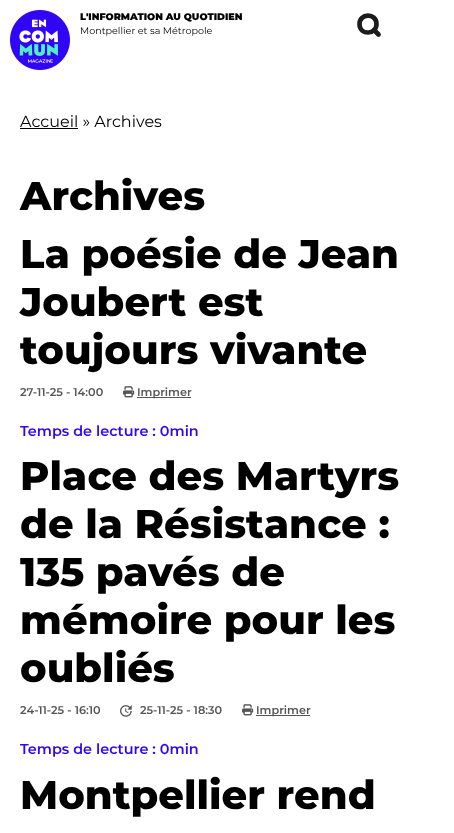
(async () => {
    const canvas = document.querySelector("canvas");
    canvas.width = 454;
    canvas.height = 833;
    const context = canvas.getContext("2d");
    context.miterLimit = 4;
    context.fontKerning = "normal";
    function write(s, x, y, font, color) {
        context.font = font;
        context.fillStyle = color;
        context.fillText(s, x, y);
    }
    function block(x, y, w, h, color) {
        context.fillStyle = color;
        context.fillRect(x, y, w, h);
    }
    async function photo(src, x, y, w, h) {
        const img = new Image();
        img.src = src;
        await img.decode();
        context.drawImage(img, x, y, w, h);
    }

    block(0, 0, 454, 833, "rgb(255, 255, 255)");
    await photo("media/1.png", 10, 10, 60, 60);
    write("L'INFORMATION AU QUOTIDIEN", 80, 20, "900 9.6px Montserrat", "rgb(0, 0, 0)");
    write("Montpellier et sa Métropole", 80, 34, "9.6px Montserrat", "rgb(0, 0, 0)");
    context.beginPath();
    context.moveTo(376.5, 24);
    context.bezierCurveTo(376.5, 35, 360, 35.5, 359.5, 24.5);
    context.bezierCurveTo(359, 13, 376.5, 12.5, 376.5, 24);
    context.closePath();
    context.strokeStyle = "rgb(28, 28, 28)";
    context.lineWidth = 4.7;
    context.lineCap = "round";
    context.stroke();
    context.beginPath();
    context.moveTo(378.5, 34.5);
    context.lineTo(374, 30);
    context.lineJoin = "round";
    context.stroke();
    write("Accueil » Archives", 20, 127, "16px Montserrat", "rgb(0, 0, 0)");
    block(20, 128, 58, 1, "rgb(0, 0, 0)");
    write("Archives", 20, 210, "800 40px Montserrat", "rgb(0, 0, 0)");
    write("La poésie de Jean", 20, 268, "800 40px Montserrat", "rgb(0, 0, 0)");
    write("Joubert est", 20, 316, "800 40px Montserrat", "rgb(0, 0, 0)");
    write("toujours vivante", 20, 364, "800 40px Montserrat", "rgb(0, 0, 0)");
    write("27-11-25 - 14:00", 20, 396, "600 11.25px Montserrat", "rgb(85, 85, 85)");
    await photo("media/2.png", 123, 386, 12, 12);
    block(137, 397, 54, 1, "rgb(85, 85, 85)");
    write("Imprimer", 137, 396, "600 11.25px Montserrat", "rgb(85, 85, 85)");
    write("Temps de lecture : 0min", 20, 436, "600 14.4px Montserrat", "rgb(48, 4, 245)");
    write("Place des Martyrs", 20, 490, "800 40px Montserrat", "rgb(0, 0, 0)");
    write("de la Résistance :", 20, 538, "800 40px Montserrat", "rgb(0, 0, 0)");
    write("135 pavés de", 20, 586, "800 40px Montserrat", "rgb(0, 0, 0)");
    write("mémoire pour les", 20, 634, "800 40px Montserrat", "rgb(0, 0, 0)");
    write("oubliés", 20, 682, "800 40px Montserrat", "rgb(0, 0, 0)");
    write("24-11-25 - 16:10", 20, 714, "600 11.25px Montserrat", "rgb(85, 85, 85)");
    await photo("media/3.png", 120, 705, 12, 12);
    write("25-11-25 - 18:30", 140, 714, "600 11.25px Montserrat", "rgb(85, 85, 85)");
    await photo("media/2.png", 242, 704, 12, 12);
    block(256, 715, 54, 1, "rgb(85, 85, 85)");
    write("Imprimer", 256, 714, "600 11.25px Montserrat", "rgb(85, 85, 85)");
    write("Temps de lecture : 0min", 20, 754, "600 14.4px Montserrat", "rgb(48, 4, 245)");
    write("Montpellier rend", 20, 809, "800 40px Montserrat", "rgb(0, 0, 0)");
})();
